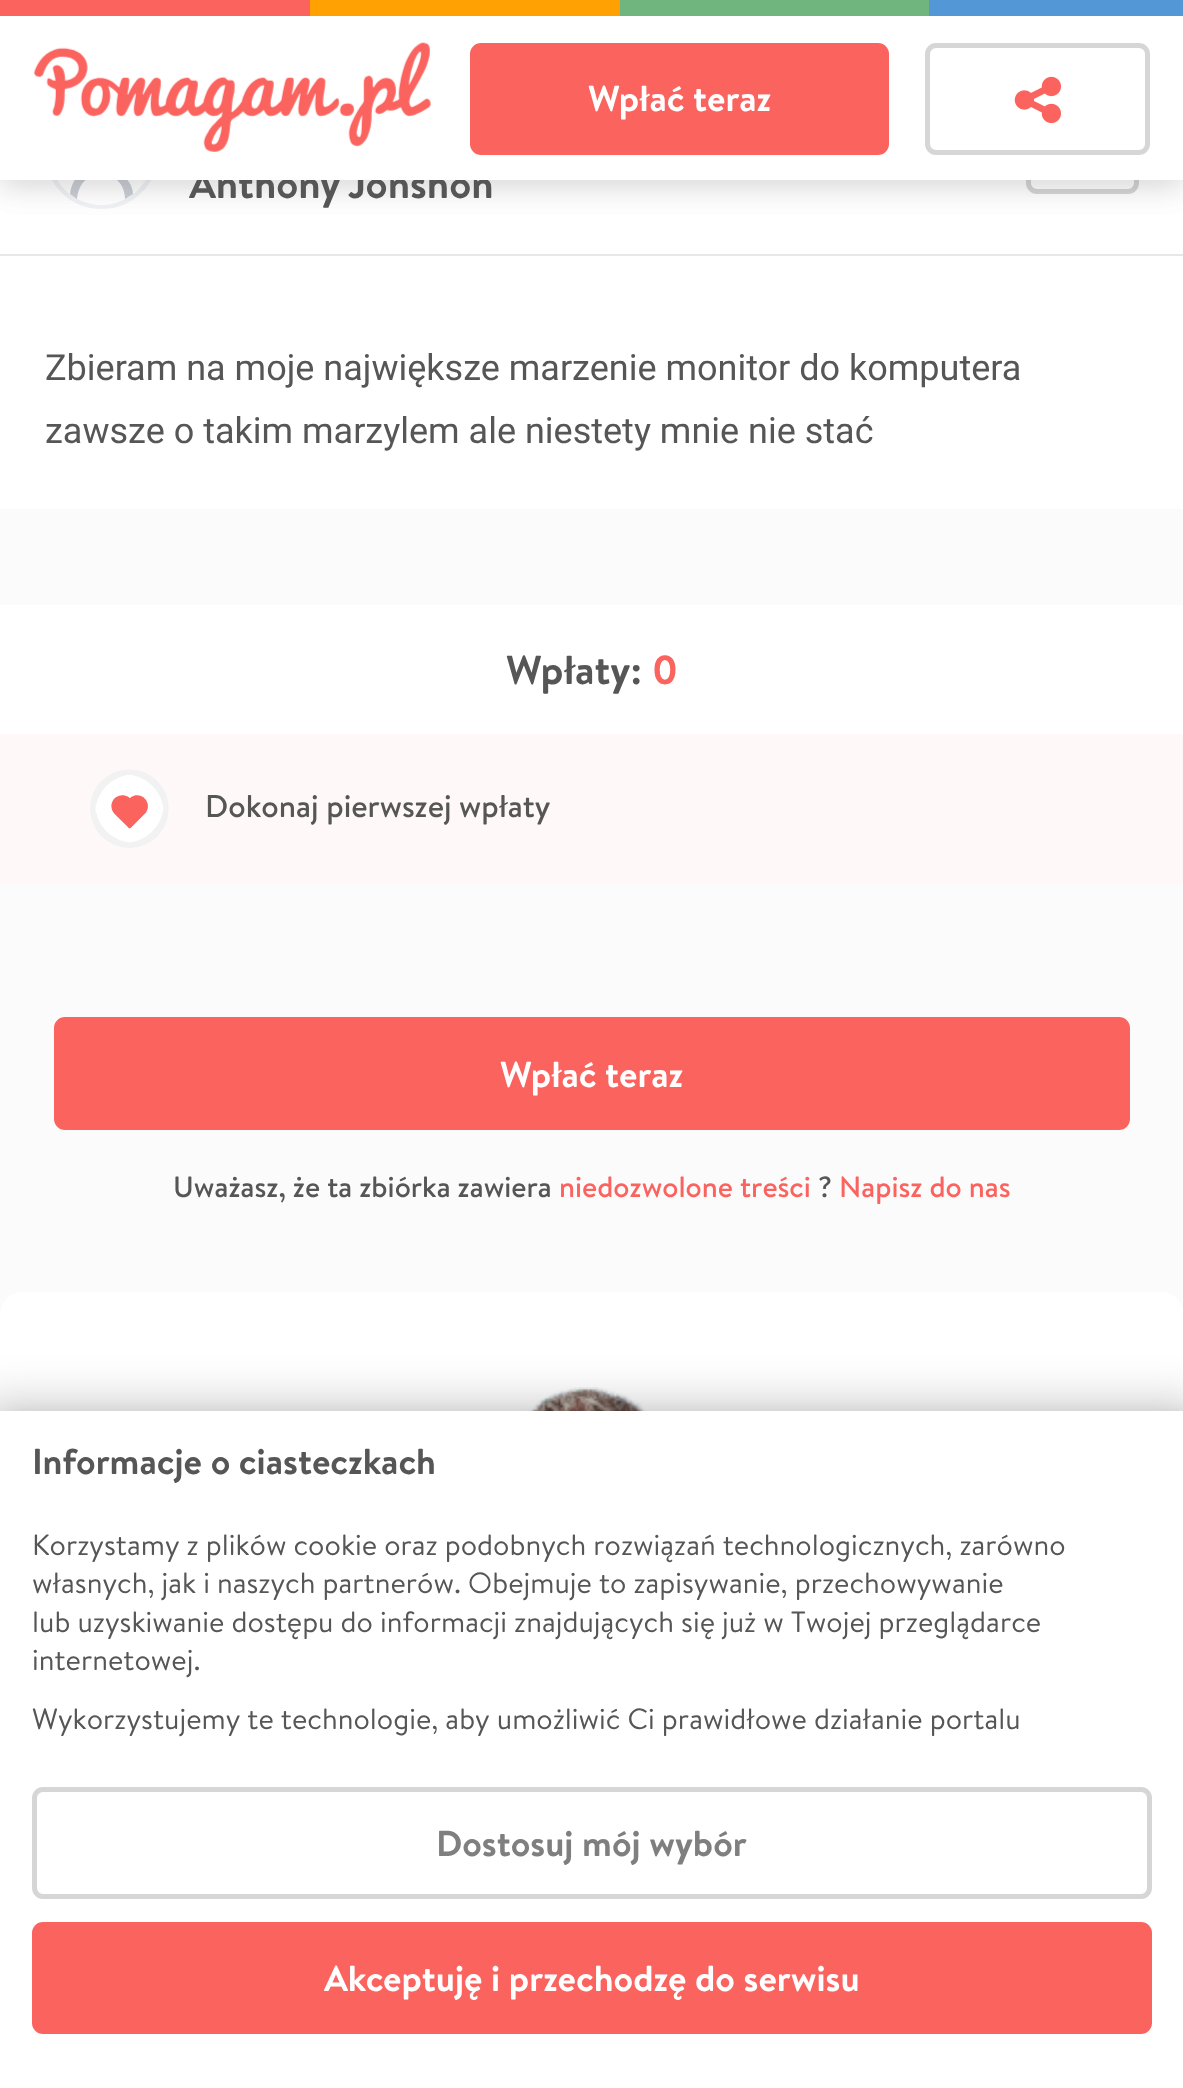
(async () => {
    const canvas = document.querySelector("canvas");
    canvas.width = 1183;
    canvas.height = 2088;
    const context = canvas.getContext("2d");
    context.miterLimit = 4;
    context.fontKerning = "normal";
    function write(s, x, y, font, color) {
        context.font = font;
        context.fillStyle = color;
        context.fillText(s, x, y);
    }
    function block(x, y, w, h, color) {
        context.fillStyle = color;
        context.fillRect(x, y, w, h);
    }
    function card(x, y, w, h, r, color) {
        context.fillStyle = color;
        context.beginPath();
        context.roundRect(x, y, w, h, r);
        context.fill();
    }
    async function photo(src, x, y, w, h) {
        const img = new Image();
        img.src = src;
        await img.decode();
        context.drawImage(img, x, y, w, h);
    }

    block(0, 0, 1183, 2088, "rgb(251, 251, 251)");
    block(0, 180, 1183, 329, "rgb(255, 255, 255)");
    context.beginPath();
    context.roundRect(47.5, 99.5, 108, 107, 53.5);
    context.strokeStyle = "rgb(240, 242, 245)";
    context.lineWidth = 5;
    context.stroke();
    card(50, 101, 103, 104, 51.5, "rgb(255, 255, 255)");
    context.fillStyle = "rgb(202, 207, 213)";
    context.beginPath();
    context.moveTo(133, 194);
    context.bezierCurveTo(133, 185, 125, 175, 118, 171);
    context.bezierCurveTo(124, 165, 126, 156, 125, 148);
    context.bezierCurveTo(123, 142, 120, 137, 115, 133);
    context.bezierCurveTo(90, 116, 64, 151, 84, 171);
    context.bezierCurveTo(76, 176, 71, 184, 70, 194);
    context.lineTo(77, 199);
    context.bezierCurveTo(78, 189, 82, 180, 92, 176);
    context.bezierCurveTo(98, 178, 105, 179, 111, 176);
    context.bezierCurveTo(120, 180, 125, 189, 125, 199);
    context.closePath();
    context.moveTo(101, 170);
    context.bezierCurveTo(80, 170, 80, 137, 101, 137);
    context.bezierCurveTo(122, 137, 122, 170, 101, 170);
    context.closePath();
    context.fill();
    context.beginPath();
    context.roundRect(1028.5, 115.5, 108, 76, 8.5);
    context.strokeStyle = "rgb(214, 214, 214)";
    context.stroke();
    context.fillStyle = "rgba(0, 0, 0, 0.09)";
    context.filter = "blur(16px)";
    context.beginPath();
    context.rect(0, 5, 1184, 180);
    context.fill();
    context.filter = "none";
    context.filter = "blur(16px)";
    context.beginPath();
    context.rect(0, 5, 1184, 180);
    context.fill();
    context.filter = "none";
    write("Anthony Jonshon", 189, 198, "bold 40.5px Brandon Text", "rgb(86, 86, 86)");
    block(0, 16, 1183, 164, "rgb(255, 255, 255)");
    block(0, 0, 310, 16, "rgb(251, 99, 95)");
    block(929, 0, 254, 16, "rgb(83, 151, 215)");
    block(620, 0, 309, 16, "rgb(111, 181, 125)");
    block(310, 0, 310, 16, "rgb(255, 160, 3)");
    await photo("media/1.png", 33, 42, 398, 110);
    context.fillStyle = "rgb(251, 99, 95)";
    context.beginPath();
    context.roundRect(472.5, 45.5, 414, 107, 8.5);
    context.fill();
    context.strokeStyle = "rgb(251, 99, 95)";
    context.stroke();
    write("Wpłać teraz", 588, 111, "bold 36px Brandon Text", "rgb(255, 255, 255)");
    context.beginPath();
    context.roundRect(927.5, 45.5, 220, 107, 8.5);
    context.strokeStyle = "rgb(214, 214, 214)";
    context.stroke();
    await photo("media/2.png", 1014, 76, 47, 48);
    block(0, 254, 1183, 2, "rgb(231, 231, 231)");
    write("Zbieram na moje największe marzenie monitor do komputera", 45, 380, "36px Roboto", "rgb(86, 86, 86)");
    write("zawsze o takim marzylem ale niestety mnie nie stać", 45, 443, "36px Roboto", "rgb(86, 86, 86)");
    block(0, 605, 1183, 129, "rgb(255, 255, 255)");
    write("Wpłaty:", 506, 684, "bold 40.5px Brandon Text", "rgb(86, 86, 86)");
    write("0", 652, 684, "bold 40.5px Brandon Text", "rgb(251, 99, 95)");
    block(0, 734, 1183, 150, "rgb(255, 248, 248)");
    await photo("media/3.png", 90, 769, 79, 79);
    write("Dokonaj pierwszej wpłaty", 205, 817, "500 31.5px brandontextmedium", "rgb(86, 86, 86)");
    context.fillStyle = "rgb(251, 99, 95)";
    context.beginPath();
    context.roundRect(56.5, 1019.5, 1071, 108, 8.5);
    context.fill();
    context.strokeStyle = "rgb(251, 99, 95)";
    context.stroke();
    write("Wpłać teraz", 500, 1087, "bold 36px Brandon Text", "rgb(255, 255, 255)");
    write("Uważasz, że ta zbiórka zawiera", 173, 1197, "500 29.25px brandontextmedium", "rgb(86, 86, 86)");
    write("niedozwolone treści", 559, 1197, "500 29.25px brandontextmedium", "rgb(251, 99, 95)");
    write("?", 818, 1197, "500 29.25px brandontextmedium", "rgb(86, 86, 86)");
    write("Napisz do nas", 839, 1197, "500 29.25px brandontextmedium", "rgb(251, 99, 95)");
    card(0, 1292, 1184, 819, 23, "rgb(255, 255, 255)");
    await photo("media/4.png", 526, 1387, 120, 24);
    context.fillStyle = "rgba(0, 0, 0, 0.19)";
    context.filter = "blur(11px)";
    context.beginPath();
    context.rect(11, 1422, 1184, 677);
    context.fill();
    context.filter = "none";
    context.fillStyle = "rgba(0, 0, 0, 0.2)";
    context.filter = "blur(22.5px)";
    context.beginPath();
    context.rect(-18, 1402, 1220, 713);
    context.fill();
    context.filter = "none";
    block(0, 1411, 1183, 677, "rgb(255, 255, 255)");
    write("Informacje o ciasteczkach", 32, 1474, "bold 36px Brandon Text", "rgb(86, 86, 86)");
    write("Korzystamy z plików cookie oraz podobnych rozwiązań technologicznych, zarówno", 32, 1555, "29.25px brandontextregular", "rgb(86, 86, 86)");
    write("własnych, jak i naszych partnerów. Obejmuje to zapisywanie, przechowywanie", 32, 1593, "29.25px brandontextregular", "rgb(86, 86, 86)");
    write("lub uzyskiwanie dostępu do informacji znajdujących się już w Twojej przeglądarce", 32, 1632, "29.25px brandontextregular", "rgb(86, 86, 86)");
    write("internetowej.", 32, 1670, "29.25px brandontextregular", "rgb(86, 86, 86)");
    write("Wykorzystujemy te technologie, aby umożliwić Ci prawidłowe działanie portalu", 32, 1729, "29.25px brandontextregular", "rgb(86, 86, 86)");
    context.beginPath();
    context.roundRect(34.5, 1789.5, 1115, 107, 8.5);
    context.strokeStyle = "rgb(214, 214, 214)";
    context.stroke();
    write("Dostosuj mój wybór", 436, 1856, "bold 36px Brandon Text", "rgb(127, 127, 127)");
    card(32, 1922, 1120, 112, 11, "rgb(251, 99, 95)");
    write("Akceptuję i przechodzę do serwisu", 324, 1991, "bold 36px Brandon Text", "rgb(255, 255, 255)");
})();
